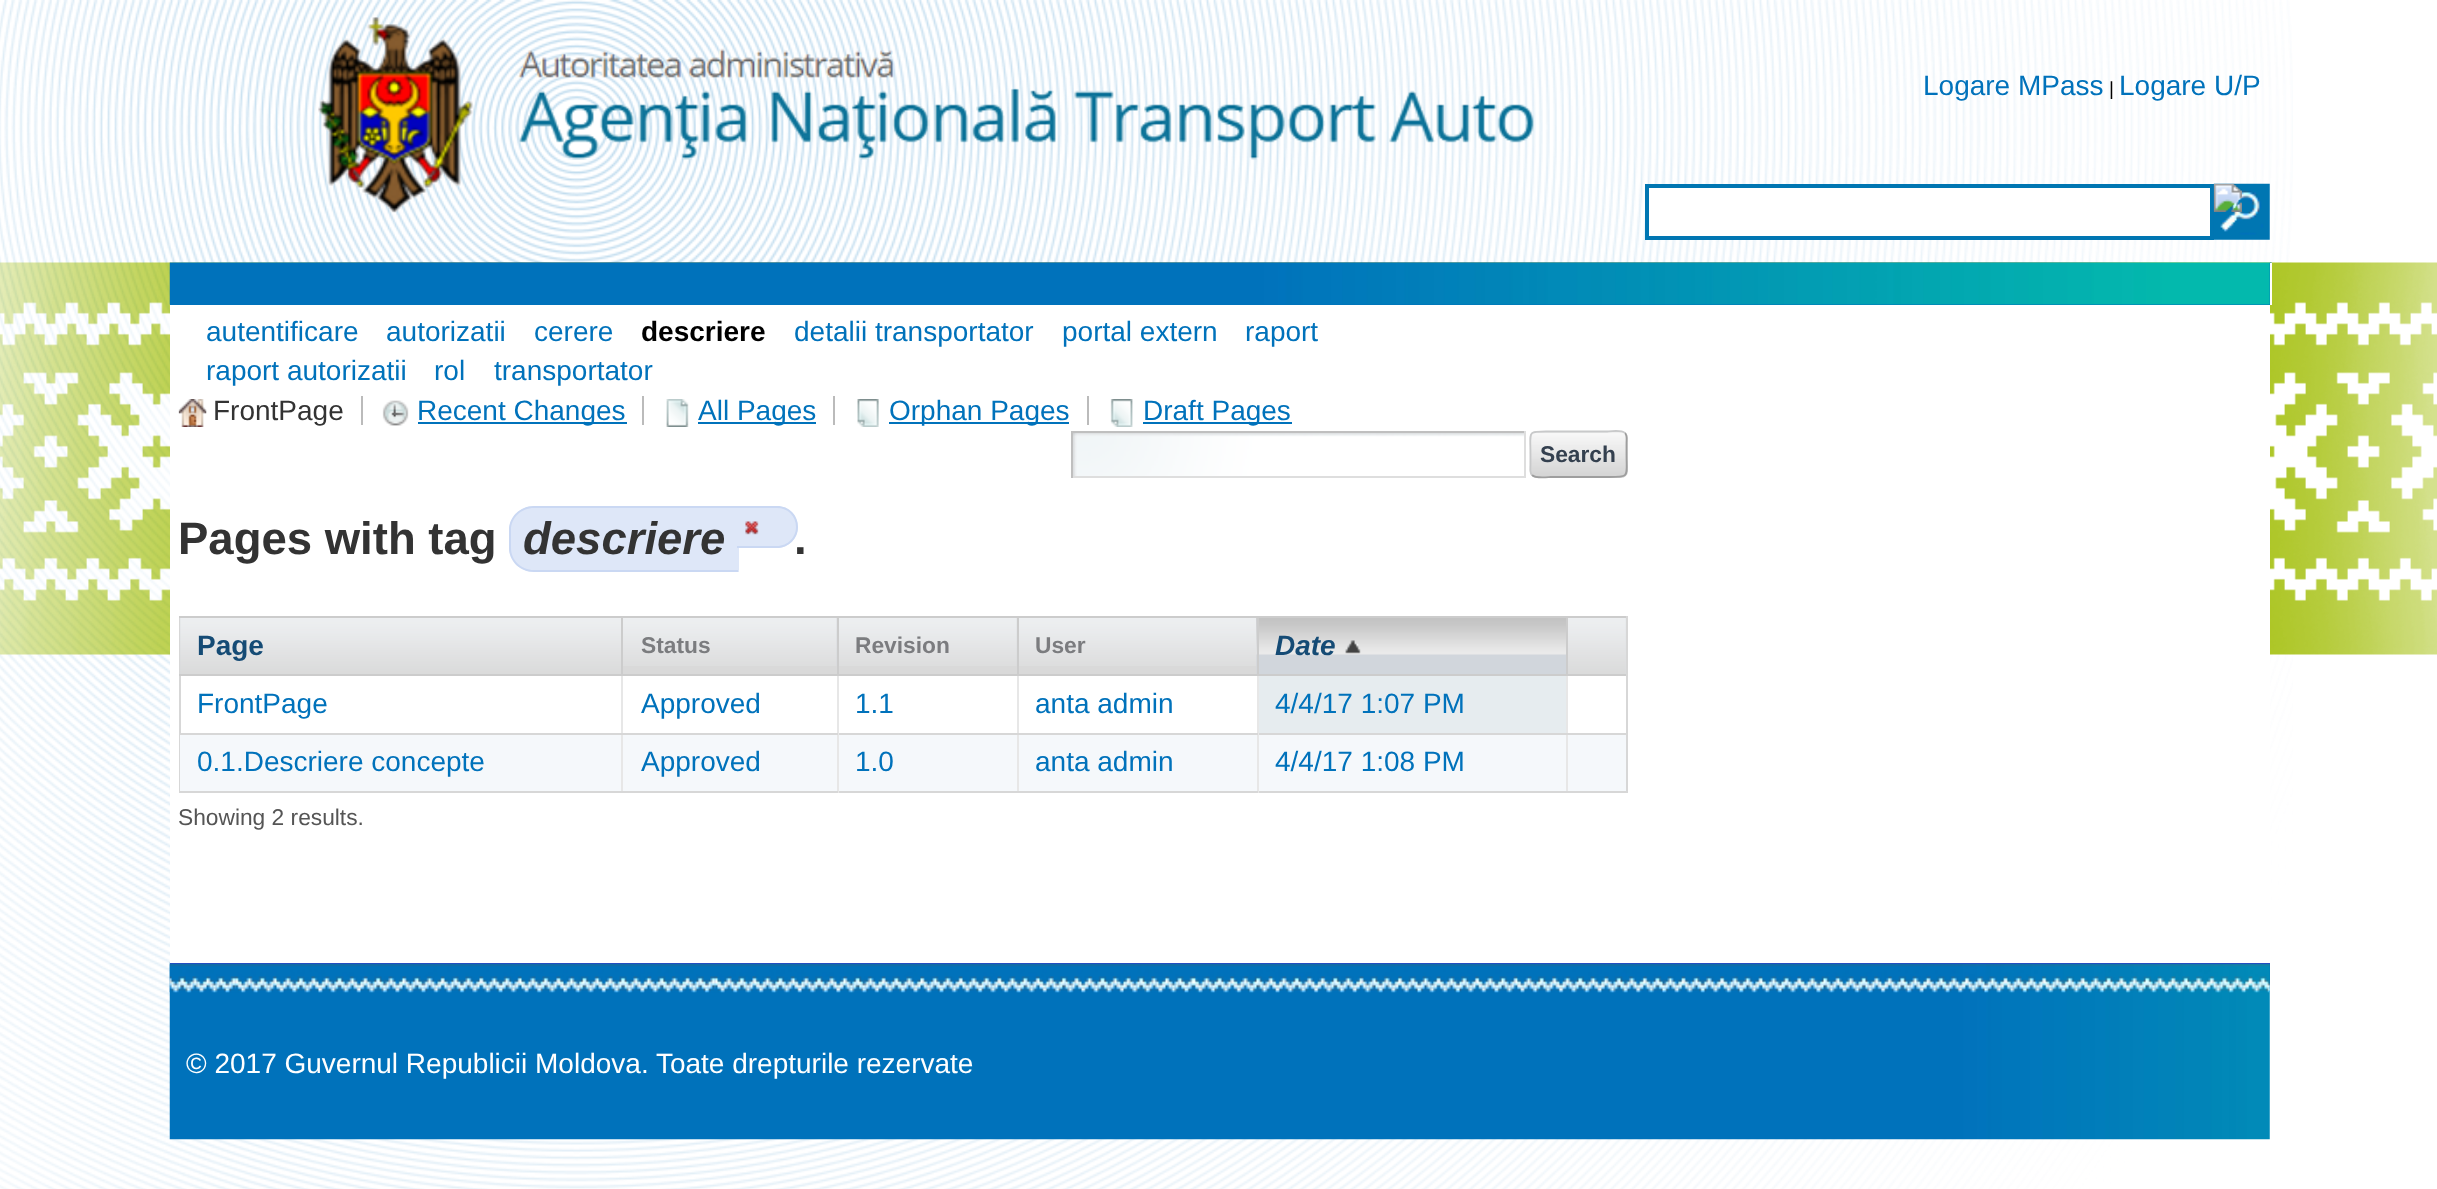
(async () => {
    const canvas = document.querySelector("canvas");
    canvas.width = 2437;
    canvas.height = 1189;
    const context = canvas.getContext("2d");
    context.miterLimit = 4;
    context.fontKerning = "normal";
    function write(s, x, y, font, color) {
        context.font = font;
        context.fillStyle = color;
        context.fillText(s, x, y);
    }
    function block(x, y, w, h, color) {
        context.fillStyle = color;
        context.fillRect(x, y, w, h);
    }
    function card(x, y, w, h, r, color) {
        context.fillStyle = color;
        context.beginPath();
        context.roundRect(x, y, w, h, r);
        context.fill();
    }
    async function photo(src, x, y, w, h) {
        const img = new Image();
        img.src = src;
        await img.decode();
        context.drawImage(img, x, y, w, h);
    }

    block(0, 0, 2437, 1189, "rgb(255, 255, 255)");
    await photo("media/1.png", 0, 0, 2293, 1189);
    await photo("media/2.png", 318, 17, 1216, 196);
    write("Logare MPass", 1923, 95, "28px Liberation Sans", "rgb(0, 114, 187)");
    write("|", 2109, 95, "19px Liberation Sans", "rgb(0, 0, 0)");
    write("Logare U/P", 2119, 95, "28px Liberation Sans", "rgb(0, 114, 187)");
    context.fillStyle = "rgb(255, 255, 255)";
    context.beginPath();
    context.rect(1647, 186, 565, 52);
    context.fill();
    context.strokeStyle = "rgb(0, 118, 178)";
    context.lineWidth = 4;
    context.stroke();
    await photo("media/3.png", 2213, 183, 57, 57);
    await photo("media/4.png", 2213, 183, 29, 29);
    await photo("media/5.png", 0, 262, 2437, 393);
    await photo("media/22.png", 169, 962, 2101, 178);
    block(170, 305, 2100, 658, "rgb(255, 255, 255)");
    block(170, 304, 2100, 1, "rgb(0, 114, 187)");
    await photo("media/6.png", 169, 262, 2103, 43);
    block(2270, 263, 2, 42, "rgb(255, 255, 255)");
    write("autentificare", 206, 341, "28px Liberation Sans", "rgb(0, 114, 187)");
    write("autorizatii", 386, 341, "28px Liberation Sans", "rgb(0, 114, 187)");
    write("cerere", 534, 341, "28px Liberation Sans", "rgb(0, 114, 187)");
    write("descriere", 641, 341, "bold 28px Liberation Sans", "rgb(0, 0, 0)");
    write("detalii transportator", 794, 341, "28px Liberation Sans", "rgb(0, 114, 187)");
    write("portal extern", 1062, 341, "28px Liberation Sans", "rgb(0, 114, 187)");
    write("raport", 1245, 341, "28px Liberation Sans", "rgb(0, 114, 187)");
    write("raport autorizatii", 206, 380, "28px Liberation Sans", "rgb(0, 114, 187)");
    write("rol", 434, 380, "28px Liberation Sans", "rgb(0, 114, 187)");
    write("transportator", 494, 380, "28px Liberation Sans", "rgb(0, 114, 187)");
    await photo("media/7.png", 178, 399, 29, 28);
    write("FrontPage", 213, 420, "28px Liberation Sans", "rgb(51, 51, 51)");
    block(361, 396, 2, 29, "rgb(187, 187, 187)");
    await photo("media/8.png", 382, 400, 27, 26);
    block(418, 422, 209, 2, "rgb(0, 114, 187)");
    write("Recent Changes", 417, 420, "28px Liberation Sans", "rgb(0, 114, 187)");
    block(642, 396, 2, 29, "rgb(187, 187, 187)");
    await photo("media/9.png", 666, 399, 23, 28);
    block(698, 422, 118, 2, "rgb(0, 114, 187)");
    write("All Pages", 698, 420, "28px Liberation Sans", "rgb(0, 114, 187)");
    block(833, 396, 2, 29, "rgb(187, 187, 187)");
    await photo("media/10.png", 857, 399, 22, 28);
    block(889, 422, 180, 2, "rgb(0, 114, 187)");
    write("Orphan Pages", 889, 420, "28px Liberation Sans", "rgb(0, 114, 187)");
    block(1087, 396, 2, 29, "rgb(187, 187, 187)");
    await photo("media/11.png", 1110, 399, 23, 28);
    block(1143, 422, 149, 2, "rgb(0, 114, 187)");
    write("Draft Pages", 1143, 420, "28px Liberation Sans", "rgb(0, 114, 187)");
    await photo("media/12.png", 1073, 433, 451, 43);
    block(1071, 431, 455, 2, "rgb(191, 191, 191)");
    block(1524, 431, 2, 47, "rgb(222, 222, 222)");
    block(1071, 476, 455, 2, "rgb(222, 222, 222)");
    block(1071, 431, 2, 47, "rgb(191, 191, 191)");
    card(1530, 431, 98, 47, 7, "rgb(212, 212, 212)");
    await photo("media/13.png", 1529, 432, 99, 46);
    context.beginPath();
    context.moveTo(1625, 433);
    context.bezierCurveTo(1627.5, 435.5, 1626.5, 440, 1626.5, 443);
    context.lineTo(1626.5, 454);
    context.bezierCurveTo(1626.5, 478, 1630.5, 477, 1606.5, 477);
    context.lineTo(1550.5, 477);
    context.bezierCurveTo(1548.5, 477, 1536, 479, 1532, 475);
    context.strokeStyle = "rgb(158, 158, 158)";
    context.lineWidth = 1.8;
    context.stroke();
    context.beginPath();
    context.moveTo(1532, 475);
    context.bezierCurveTo(1529.5, 472.5, 1530.5, 468.5, 1530.5, 465);
    context.lineTo(1530.5, 454);
    context.bezierCurveTo(1530.5, 430, 1526.5, 431.5, 1550.5, 431.5);
    context.lineTo(1606.5, 431.5);
    context.bezierCurveTo(1608.5, 431.5, 1621, 429, 1625, 433);
    context.strokeStyle = "rgb(200, 201, 202)";
    context.stroke();
    write("Search", 1540, 462, "bold 22.75px Liberation Sans", "rgb(52, 64, 79)");
    write("Pages with tag", 178, 554, "bold 45.5px Liberation Sans", "rgb(51, 51, 51)");
    context.fillStyle = "rgb(222, 231, 248)";
    context.beginPath();
    context.roundRect(509, 506, 230, 66, [25, 0, 0, 25]);
    context.fill();
    context.fillStyle = "rgb(202, 216, 243)";
    context.beginPath();
    context.moveTo(534, 506);
    context.lineTo(738, 506);
    context.lineTo(738, 572);
    context.lineTo(534, 572);
    context.bezierCurveTo(520, 572, 509, 561, 509, 548);
    context.lineTo(509, 530);
    context.bezierCurveTo(509, 517, 520, 506, 534, 506);
    context.closePath();
    context.moveTo(534, 508);
    context.lineTo(738, 508);
    context.lineTo(738, 570);
    context.lineTo(534, 570);
    context.bezierCurveTo(521, 570, 511, 560, 511, 548);
    context.lineTo(511, 530);
    context.bezierCurveTo(511, 518, 521, 508, 534, 508);
    context.closePath();
    context.fill("evenodd");
    write(".", 794, 554, "bold 45.5px Liberation Sans", "rgb(51, 51, 51)");
    context.fillStyle = "rgb(222, 231, 248)";
    context.beginPath();
    context.roundRect(737, 506, 61, 42, [0, 21, 21, 0]);
    context.fill();
    context.fillStyle = "rgb(202, 216, 243)";
    context.beginPath();
    context.moveTo(737, 506);
    context.lineTo(777, 506);
    context.bezierCurveTo(789, 506, 798, 515, 798, 527);
    context.bezierCurveTo(798, 538, 789, 548, 777, 548);
    context.lineTo(737, 548);
    context.closePath();
    context.moveTo(737, 508);
    context.lineTo(777, 508);
    context.bezierCurveTo(788, 508, 796, 516, 796, 527);
    context.bezierCurveTo(796, 537, 788, 546, 777, 546);
    context.lineTo(737, 546);
    context.closePath();
    context.fill("evenodd");
    write("descriere", 523, 554, "italic bold 45.5px Liberation Sans", "rgb(51, 51, 51)");
    await photo("media/14.png", 745, 521, 14, 14);
    block(1626, 616, 2, 177, "rgb(215, 215, 215)");
    block(179, 616, 2, 177, "rgb(215, 215, 215)");
    await photo("media/15.png", 180, 618, 441, 56);
    block(1566, 616, 60, 2, "rgb(204, 204, 204)");
    block(1566, 791, 60, 2, "rgb(215, 215, 215)");
    block(1566, 733, 2, 60, "rgb(231, 231, 231)");
    block(1566, 733, 60, 2, "rgb(215, 215, 215)");
    block(1566, 674, 2, 61, "rgb(231, 231, 231)");
    block(1566, 674, 60, 2, "rgb(204, 204, 204)");
    block(1566, 616, 2, 60, "rgb(204, 204, 204)");
    block(1257, 616, 311, 2, "rgb(204, 204, 204)");
    block(1019, 618, 238, 56, "rgb(217, 217, 217)");
    await photo("media/18.png", 1019, 618, 238, 48);
    await photo("media/19.png", 1256, 618, 310, 56);
    block(1257, 791, 311, 2, "rgb(215, 215, 215)");
    block(1257, 733, 2, 60, "rgb(231, 231, 231)");
    block(1257, 733, 311, 2, "rgb(215, 215, 215)");
    block(1257, 674, 2, 61, "rgb(231, 231, 231)");
    block(1257, 674, 311, 2, "rgb(204, 204, 204)");
    block(1257, 616, 2, 60, "rgb(204, 204, 204)");
    block(1017, 616, 241, 2, "rgb(204, 204, 204)");
    block(1017, 791, 241, 2, "rgb(215, 215, 215)");
    block(1017, 733, 2, 60, "rgb(231, 231, 231)");
    block(1017, 733, 241, 2, "rgb(215, 215, 215)");
    block(1017, 674, 2, 61, "rgb(231, 231, 231)");
    block(1017, 674, 241, 2, "rgb(204, 204, 204)");
    block(1017, 616, 2, 60, "rgb(204, 204, 204)");
    block(837, 616, 182, 2, "rgb(204, 204, 204)");
    block(623, 618, 214, 56, "rgb(217, 217, 217)");
    await photo("media/16.png", 623, 618, 214, 48);
    block(839, 618, 178, 56, "rgb(217, 217, 217)");
    await photo("media/17.png", 836, 618, 181, 48);
    block(837, 791, 182, 2, "rgb(215, 215, 215)");
    block(837, 733, 2, 60, "rgb(231, 231, 231)");
    block(837, 733, 182, 2, "rgb(215, 215, 215)");
    block(837, 674, 2, 61, "rgb(231, 231, 231)");
    block(837, 674, 182, 2, "rgb(204, 204, 204)");
    block(837, 616, 2, 60, "rgb(204, 204, 204)");
    block(621, 616, 217, 2, "rgb(204, 204, 204)");
    block(621, 791, 217, 2, "rgb(215, 215, 215)");
    block(621, 733, 2, 60, "rgb(231, 231, 231)");
    block(621, 733, 217, 2, "rgb(215, 215, 215)");
    block(621, 674, 2, 61, "rgb(231, 231, 231)");
    block(621, 674, 217, 2, "rgb(204, 204, 204)");
    block(621, 616, 2, 60, "rgb(204, 204, 204)");
    block(179, 616, 444, 2, "rgb(204, 204, 204)");
    block(179, 674, 444, 2, "rgb(204, 204, 204)");
    write("Page", 197, 655, "bold 28px Liberation Sans", "rgb(21, 75, 117)");
    write("Status", 641, 653, "bold 22.75px Liberation Sans", "rgb(123, 124, 127)");
    write("Revision", 855, 653, "bold 22.75px Liberation Sans", "rgb(123, 124, 127)");
    write("User", 1035, 653, "bold 22.75px Liberation Sans", "rgb(123, 124, 127)");
    await photo("media/20.png", 1345, 640, 16, 14);
    write("Date", 1275, 655, "italic bold 28px Liberation Sans", "rgb(21, 75, 117)");
    await photo("media/21.png", 1568, 618, 58, 56);
    block(179, 733, 444, 2, "rgb(215, 215, 215)");
    write("FrontPage", 197, 713, "28px Liberation Sans", "rgb(0, 114, 187)");
    write("Approved", 641, 713, "28px Liberation Sans", "rgb(0, 114, 187)");
    write("1.1", 855, 713, "28px Liberation Sans", "rgb(0, 114, 187)");
    write("anta admin", 1035, 713, "28px Liberation Sans", "rgb(0, 114, 187)");
    block(1259, 676, 307, 57, "rgb(230, 236, 239)");
    write("4/4/17 1:07 PM", 1275, 713, "28px Liberation Sans", "rgb(0, 114, 187)");
    block(180, 735, 441, 56, "rgb(245, 248, 251)");
    block(179, 791, 444, 2, "rgb(215, 215, 215)");
    write("0.1.Descriere concepte", 197, 771, "28px Liberation Sans", "rgb(0, 114, 187)");
    block(623, 735, 214, 56, "rgb(245, 248, 251)");
    write("Approved", 641, 771, "28px Liberation Sans", "rgb(0, 114, 187)");
    block(839, 735, 178, 56, "rgb(245, 248, 251)");
    write("1.0", 855, 771, "28px Liberation Sans", "rgb(0, 114, 187)");
    block(1019, 735, 238, 56, "rgb(245, 248, 251)");
    write("anta admin", 1035, 771, "28px Liberation Sans", "rgb(0, 114, 187)");
    block(1259, 735, 307, 56, "rgb(245, 248, 251)");
    write("4/4/17 1:08 PM", 1275, 771, "28px Liberation Sans", "rgb(0, 114, 187)");
    block(1568, 735, 58, 56, "rgb(245, 248, 251)");
    write("Showing 2 results.", 178, 825, "22.75px Liberation Sans", "rgb(85, 85, 85)");
    block(170, 963, 2100, 1, "rgb(35, 78, 193)");
    block(1986, 964, 284, 28, "rgb(0, 114, 187)");
    await photo("media/23.png", 169, 964, 2101, 29);
    write("© 2017 Guvernul Republicii Moldova. Toate drepturile rezervate", 186, 1073, "28px Liberation Sans", "rgb(255, 255, 255)");
})();
